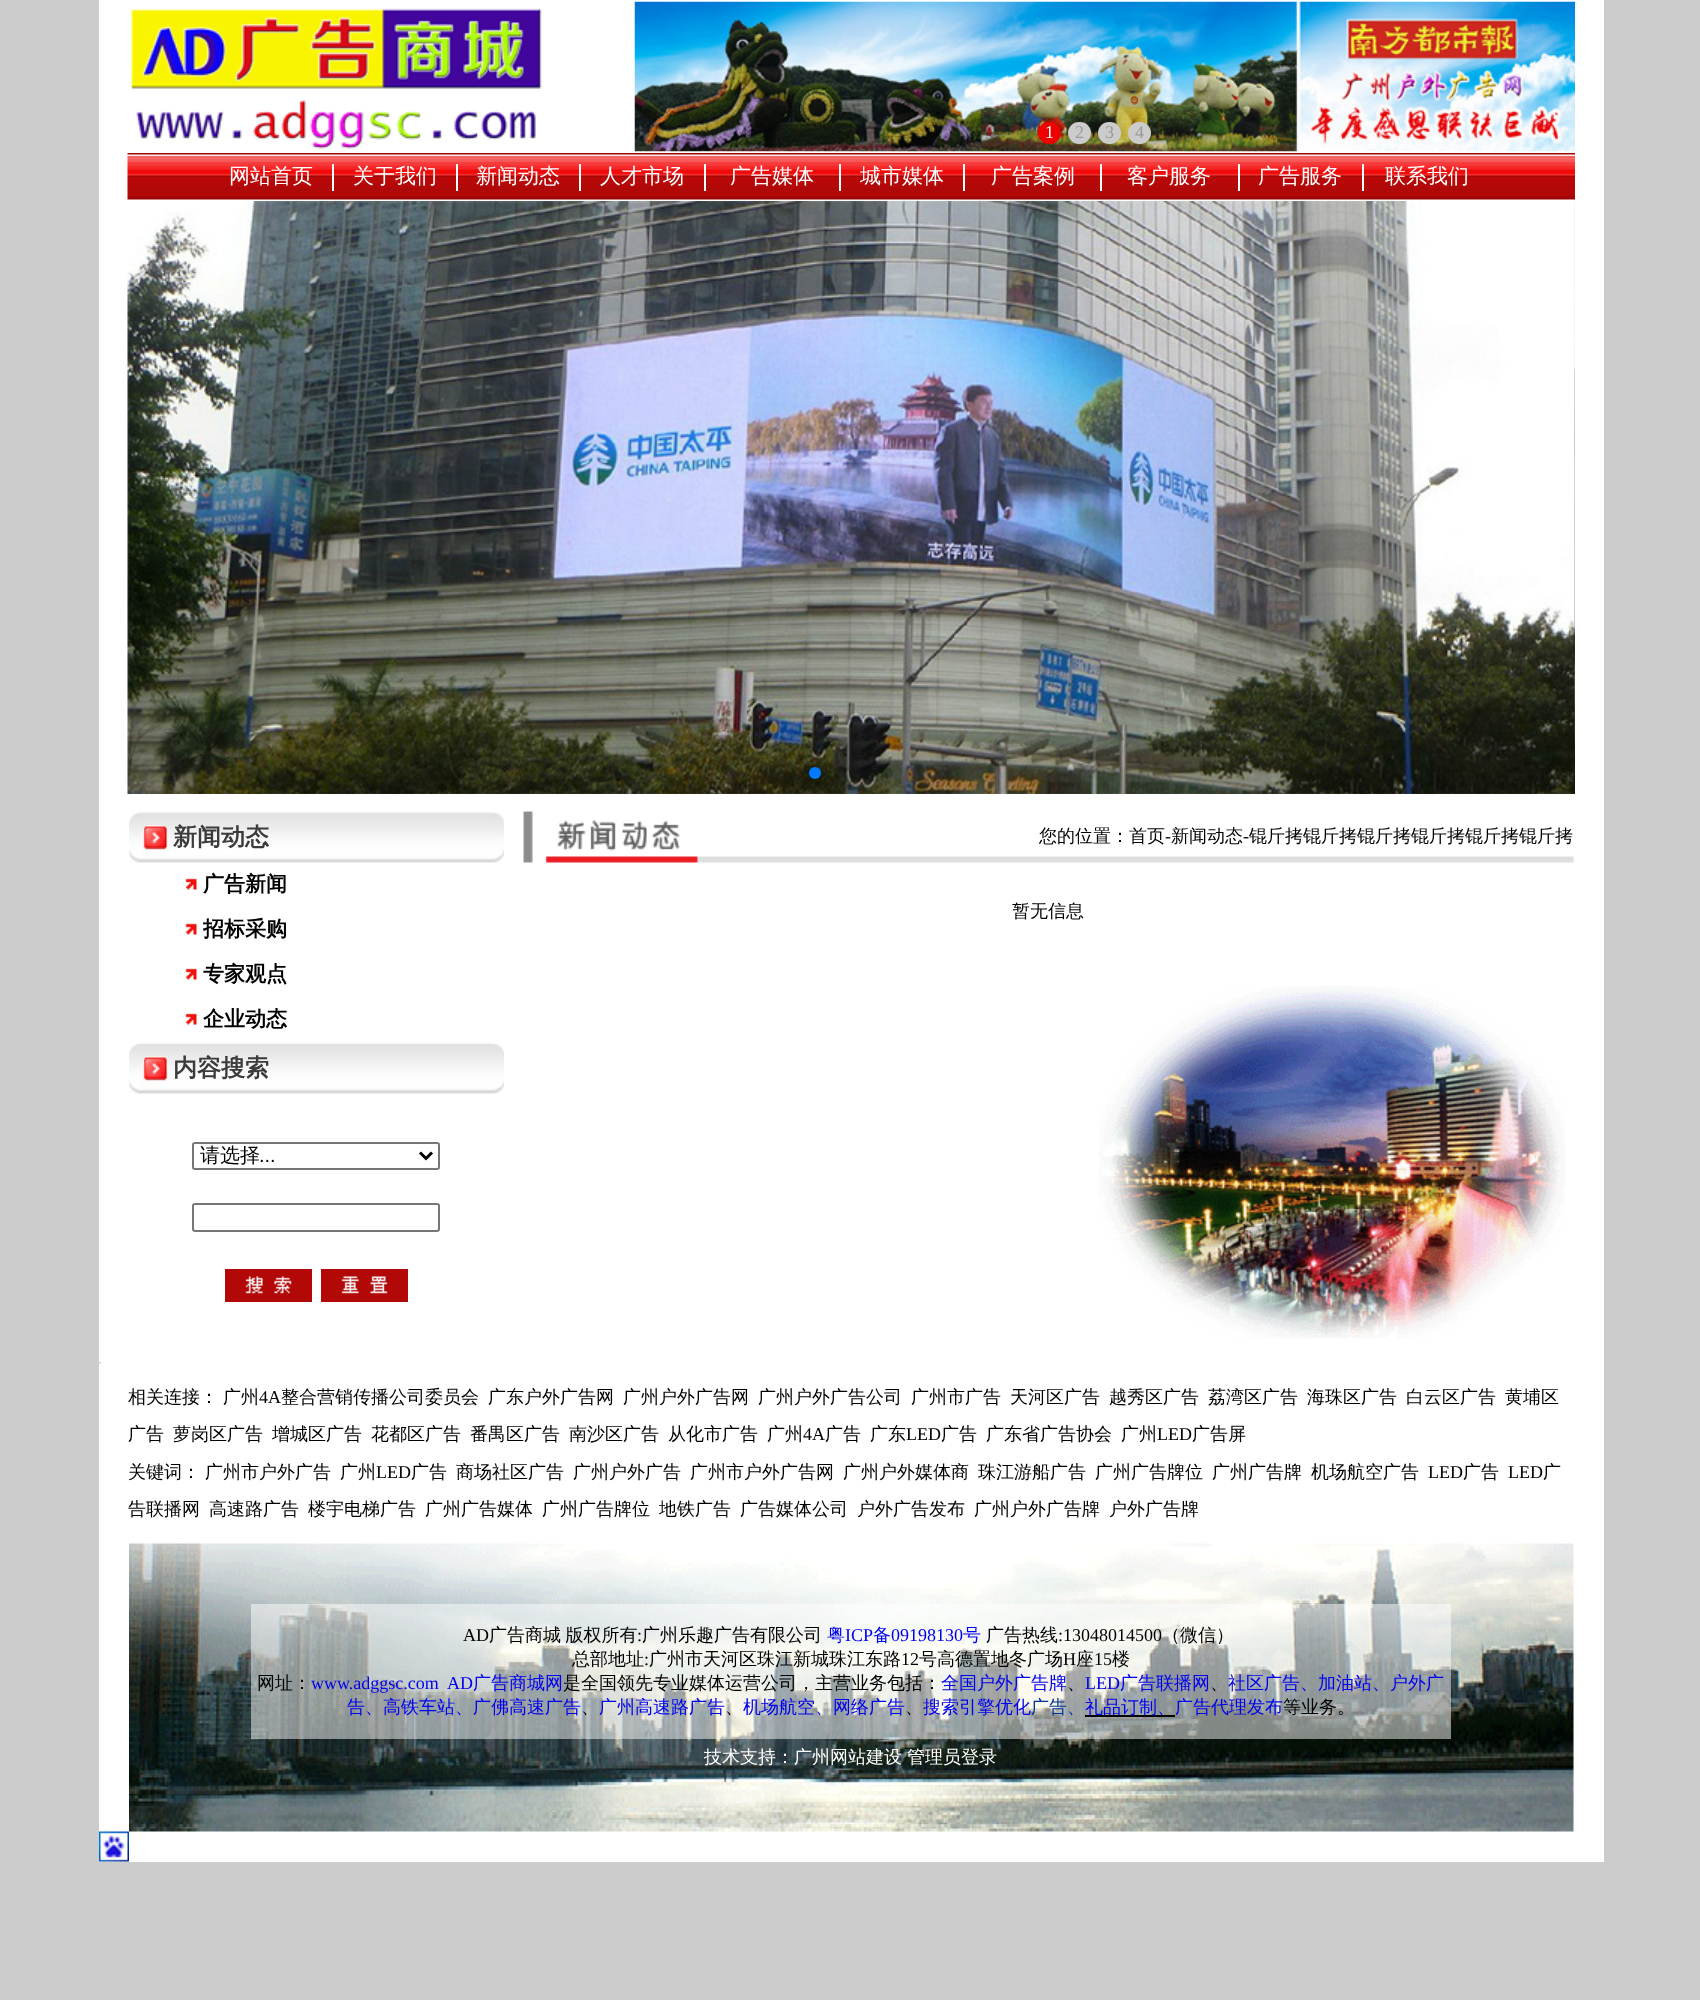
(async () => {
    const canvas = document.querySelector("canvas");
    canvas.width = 1700;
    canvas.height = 2000;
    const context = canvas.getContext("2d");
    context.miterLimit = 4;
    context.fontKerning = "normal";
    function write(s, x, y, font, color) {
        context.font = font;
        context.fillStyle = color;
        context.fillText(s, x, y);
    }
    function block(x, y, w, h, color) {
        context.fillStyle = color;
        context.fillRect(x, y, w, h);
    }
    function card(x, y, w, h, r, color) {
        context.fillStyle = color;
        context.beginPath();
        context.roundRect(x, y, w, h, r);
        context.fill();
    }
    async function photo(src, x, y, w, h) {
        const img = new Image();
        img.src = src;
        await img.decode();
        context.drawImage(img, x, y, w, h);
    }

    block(0, 0, 1700, 2000, "rgb(204, 204, 204)");
    block(99, 0, 1505, 1862, "rgb(255, 255, 255)");
    await photo("media/1.png", 130, 8, 412, 142);
    await photo("media/2.png", 634, 1, 941, 151);
    card(1038, 122, 23, 22, 11, "rgb(238, 0, 0)");
    write("1", 1045, 138, "18px Liberation Serif", "rgb(255, 255, 255)");
    card(1068, 122, 23, 22, 11, "rgb(204, 204, 204)");
    write("2", 1075, 138, "18px Liberation Serif", "rgb(153, 153, 153)");
    card(1098, 122, 23, 22, 11, "rgb(204, 204, 204)");
    write("3", 1105, 138, "18px Liberation Serif", "rgb(153, 153, 153)");
    card(1128, 122, 23, 22, 11, "rgb(204, 204, 204)");
    write("4", 1135, 138, "18px Liberation Serif", "rgb(153, 153, 153)");
    await photo("media/3.png", 127, 153, 1448, 47);
    block(332, 164, 2, 27, "rgb(255, 255, 255)");
    write("网站首页", 229, 183, "500 21px WenQuanYi Zen Hei", "rgb(255, 255, 255)");
    block(456, 164, 2, 27, "rgb(255, 255, 255)");
    write("关于我们", 353, 183, "500 21px WenQuanYi Zen Hei", "rgb(255, 255, 255)");
    block(579, 164, 2, 27, "rgb(255, 255, 255)");
    write("新闻动态", 476, 183, "500 21px WenQuanYi Zen Hei", "rgb(255, 255, 255)");
    block(704, 164, 2, 27, "rgb(255, 255, 255)");
    write("人才市场", 600, 183, "500 21px WenQuanYi Zen Hei", "rgb(255, 255, 255)");
    block(839, 164, 2, 27, "rgb(255, 255, 255)");
    write("广告媒体", 730, 183, "500 21px WenQuanYi Zen Hei", "rgb(255, 255, 255)");
    block(963, 164, 2, 27, "rgb(255, 255, 255)");
    write("城市媒体", 860, 183, "500 21px WenQuanYi Zen Hei", "rgb(255, 255, 255)");
    block(1100, 164, 2, 27, "rgb(255, 255, 255)");
    write("广告案例", 991, 183, "500 21px WenQuanYi Zen Hei", "rgb(255, 255, 255)");
    block(1238, 164, 2, 27, "rgb(255, 255, 255)");
    write("客户服务", 1127, 183, "500 21px WenQuanYi Zen Hei", "rgb(255, 255, 255)");
    block(1362, 164, 2, 27, "rgb(255, 255, 255)");
    write("广告服务", 1258, 183, "500 21px WenQuanYi Zen Hei", "rgb(255, 255, 255)");
    write("联系我们", 1385, 183, "500 21px WenQuanYi Zen Hei", "rgb(255, 255, 255)");
    await photo("media/4.png", 127, 201, 1448, 593);
    await photo("media/5.png", 1574, 201, 1, 593);
    context.fillStyle = "rgb(0, 122, 255)";
    context.beginPath();
    context.arc(815, 773, 6, 0, Math.PI * 2);
    context.fill();
    context.fillStyle = "rgba(0, 0, 0, 0.2)";
    context.beginPath();
    context.arc(839, 773, 6, 0, Math.PI * 2);
    context.fill();
    context.beginPath();
    context.arc(863, 773, 6, 0, Math.PI * 2);
    context.fill();
    context.beginPath();
    context.arc(887, 773, 6, 0, Math.PI * 2);
    context.fill();
    await photo("media/6.png", 129, 811, 375, 52);
    write("新闻动态", 173, 845, "bold 24px WenQuanYi Zen Hei", "rgb(59, 59, 59)");
    await photo("media/7.png", 185, 878, 12, 12);
    write("广告新闻", 203, 891, "bold 21px WenQuanYi Zen Hei", "rgb(0, 0, 0)");
    await photo("media/7.png", 185, 923, 12, 12);
    write("招标采购", 203, 936, "bold 21px WenQuanYi Zen Hei", "rgb(0, 0, 0)");
    await photo("media/7.png", 185, 968, 12, 12);
    write("专家观点", 203, 981, "bold 21px WenQuanYi Zen Hei", "rgb(0, 0, 0)");
    await photo("media/7.png", 185, 1013, 12, 12);
    write("企业动态", 203, 1026, "bold 21px WenQuanYi Zen Hei", "rgb(0, 0, 0)");
    await photo("media/6.png", 129, 1042, 375, 52);
    write("内容搜索", 173, 1076, "bold 24px WenQuanYi Zen Hei", "rgb(59, 59, 59)");
    context.beginPath();
    context.roundRect(193, 1143, 246, 26, 2);
    context.strokeStyle = "rgb(118, 118, 118)";
    context.lineWidth = 2;
    context.stroke();
    context.beginPath();
    context.moveTo(420, 1152.5);
    context.lineTo(426, 1158.5);
    context.lineTo(432, 1152.5);
    context.strokeStyle = "rgb(0, 0, 0)";
    context.lineWidth = 3;
    context.stroke();
    write("请选择", 200, 1162, "500 20px WenQuanYi Zen Hei", "rgb(0, 0, 0)");
    write("...", 259, 1162, "20px Liberation Sans", "rgb(0, 0, 0)");
    context.beginPath();
    context.roundRect(193, 1204, 246, 27, 2);
    context.strokeStyle = "rgb(118, 118, 118)";
    context.lineWidth = 2;
    context.stroke();
    await photo("media/8.png", 225, 1269, 87, 33);
    await photo("media/9.png", 321, 1269, 87, 33);
    await photo("media/10.png", 1098, 986, 468, 353);
    await photo("media/11.png", 523, 811, 1051, 52);
    write("您的位置：首页", 1039, 842, "500 18px WenQuanYi Zen Hei", "rgb(0, 0, 0)");
    write("-", 1165, 842, "18px Liberation Serif", "rgb(0, 0, 0)");
    write("新闻动态", 1171, 842, "500 18px WenQuanYi Zen Hei", "rgb(0, 0, 0)");
    write("-", 1243, 842, "18px Liberation Serif", "rgb(0, 0, 0)");
    write("锟斤拷锟斤拷锟斤拷锟斤拷锟斤拷锟斤拷", 1249, 842, "500 18px WenQuanYi Zen Hei", "rgb(0, 0, 0)");
    write("暂无信息", 1012, 917, "500 18px WenQuanYi Zen Hei", "rgb(0, 0, 0)");
    await photo("media/12.png", 99, 1362, 2, 2);
    write("相关连接：", 128, 1403, "500 18px WenQuanYi Zen Hei", "rgb(0, 0, 0)");
    write("广州", 223, 1403, "500 18px WenQuanYi Zen Hei", "rgb(0, 0, 0)");
    write("4A", 259, 1403, "18px Liberation Serif", "rgb(0, 0, 0)");
    write("整合营销传播公司委员会", 281, 1403, "500 18px WenQuanYi Zen Hei", "rgb(0, 0, 0)");
    write("广东户外广告网", 488, 1403, "500 18px WenQuanYi Zen Hei", "rgb(0, 0, 0)");
    write("广州户外广告网", 623, 1403, "500 18px WenQuanYi Zen Hei", "rgb(0, 0, 0)");
    write("广州户外广告公司", 758, 1403, "500 18px WenQuanYi Zen Hei", "rgb(0, 0, 0)");
    write("广州市广告", 911, 1403, "500 18px WenQuanYi Zen Hei", "rgb(0, 0, 0)");
    write("天河区广告", 1010, 1403, "500 18px WenQuanYi Zen Hei", "rgb(0, 0, 0)");
    write("越秀区广告", 1109, 1403, "500 18px WenQuanYi Zen Hei", "rgb(0, 0, 0)");
    write("荔湾区广告", 1208, 1403, "500 18px WenQuanYi Zen Hei", "rgb(0, 0, 0)");
    write("海珠区广告", 1307, 1403, "500 18px WenQuanYi Zen Hei", "rgb(0, 0, 0)");
    write("白云区广告", 1406, 1403, "500 18px WenQuanYi Zen Hei", "rgb(0, 0, 0)");
    write("黄埔区", 1505, 1403, "500 18px WenQuanYi Zen Hei", "rgb(0, 0, 0)");
    write("广告", 128, 1440, "500 18px WenQuanYi Zen Hei", "rgb(0, 0, 0)");
    write("萝岗区广告", 173, 1440, "500 18px WenQuanYi Zen Hei", "rgb(0, 0, 0)");
    write("增城区广告", 272, 1440, "500 18px WenQuanYi Zen Hei", "rgb(0, 0, 0)");
    write("花都区广告", 371, 1440, "500 18px WenQuanYi Zen Hei", "rgb(0, 0, 0)");
    write("番禺区广告", 470, 1440, "500 18px WenQuanYi Zen Hei", "rgb(0, 0, 0)");
    write("南沙区广告", 569, 1440, "500 18px WenQuanYi Zen Hei", "rgb(0, 0, 0)");
    write("从化市广告", 668, 1440, "500 18px WenQuanYi Zen Hei", "rgb(0, 0, 0)");
    write("广州", 767, 1440, "500 18px WenQuanYi Zen Hei", "rgb(0, 0, 0)");
    write("4A", 803, 1440, "18px Liberation Serif", "rgb(0, 0, 0)");
    write("广告", 825, 1440, "500 18px WenQuanYi Zen Hei", "rgb(0, 0, 0)");
    write("广东", 870, 1440, "500 18px WenQuanYi Zen Hei", "rgb(0, 0, 0)");
    write("LED", 906, 1440, "18px Liberation Serif", "rgb(0, 0, 0)");
    write("广告", 941, 1440, "500 18px WenQuanYi Zen Hei", "rgb(0, 0, 0)");
    write("广东省广告协会", 986, 1440, "500 18px WenQuanYi Zen Hei", "rgb(0, 0, 0)");
    write("广州", 1121, 1440, "500 18px WenQuanYi Zen Hei", "rgb(0, 0, 0)");
    write("LED", 1157, 1440, "18px Liberation Serif", "rgb(0, 0, 0)");
    write("广告屏", 1192, 1440, "500 18px WenQuanYi Zen Hei", "rgb(0, 0, 0)");
    write("关键词：", 128, 1478, "500 18px WenQuanYi Zen Hei", "rgb(0, 0, 0)");
    write("广州市户外广告", 205, 1478, "500 18px WenQuanYi Zen Hei", "rgb(0, 0, 0)");
    write("广州", 340, 1478, "500 18px WenQuanYi Zen Hei", "rgb(0, 0, 0)");
    write("LED", 376, 1478, "18px Liberation Serif", "rgb(0, 0, 0)");
    write("广告", 411, 1478, "500 18px WenQuanYi Zen Hei", "rgb(0, 0, 0)");
    write("商场社区广告", 456, 1478, "500 18px WenQuanYi Zen Hei", "rgb(0, 0, 0)");
    write("广州户外广告", 573, 1478, "500 18px WenQuanYi Zen Hei", "rgb(0, 0, 0)");
    write("广州市户外广告网", 690, 1478, "500 18px WenQuanYi Zen Hei", "rgb(0, 0, 0)");
    write("广州户外媒体商", 843, 1478, "500 18px WenQuanYi Zen Hei", "rgb(0, 0, 0)");
    write("珠江游船广告", 978, 1478, "500 18px WenQuanYi Zen Hei", "rgb(0, 0, 0)");
    write("广州广告牌位", 1095, 1478, "500 18px WenQuanYi Zen Hei", "rgb(0, 0, 0)");
    write("广州广告牌", 1212, 1478, "500 18px WenQuanYi Zen Hei", "rgb(0, 0, 0)");
    write("机场航空广告", 1311, 1478, "500 18px WenQuanYi Zen Hei", "rgb(0, 0, 0)");
    write("LED", 1428, 1478, "18px Liberation Serif", "rgb(0, 0, 0)");
    write("广告", 1463, 1478, "500 18px WenQuanYi Zen Hei", "rgb(0, 0, 0)");
    write("LED", 1508, 1478, "18px Liberation Serif", "rgb(0, 0, 0)");
    write("广", 1543, 1478, "500 18px WenQuanYi Zen Hei", "rgb(0, 0, 0)");
    write("告联播网", 128, 1515, "500 18px WenQuanYi Zen Hei", "rgb(0, 0, 0)");
    write("高速路广告", 209, 1515, "500 18px WenQuanYi Zen Hei", "rgb(0, 0, 0)");
    write("楼宇电梯广告", 308, 1515, "500 18px WenQuanYi Zen Hei", "rgb(0, 0, 0)");
    write("广州广告媒体", 425, 1515, "500 18px WenQuanYi Zen Hei", "rgb(0, 0, 0)");
    write("广州广告牌位", 542, 1515, "500 18px WenQuanYi Zen Hei", "rgb(0, 0, 0)");
    write("地铁广告", 659, 1515, "500 18px WenQuanYi Zen Hei", "rgb(0, 0, 0)");
    write("广告媒体公司", 740, 1515, "500 18px WenQuanYi Zen Hei", "rgb(0, 0, 0)");
    write("户外广告发布", 857, 1515, "500 18px WenQuanYi Zen Hei", "rgb(0, 0, 0)");
    write("广州户外广告牌", 974, 1515, "500 18px WenQuanYi Zen Hei", "rgb(0, 0, 0)");
    write("户外广告牌", 1109, 1515, "500 18px WenQuanYi Zen Hei", "rgb(0, 0, 0)");
    await photo("media/13.png", 129, 1543, 1445, 289);
    block(251, 1604, 1200, 135, "rgba(255, 255, 255, 0.5)");
    write("AD", 463, 1641, "18px Liberation Serif", "rgb(0, 0, 0)");
    context.wordSpacing = "-1px";
    write("广告商城 版权所有", 489, 1641, "500 18px WenQuanYi Zen Hei", "rgb(0, 0, 0)");
    context.wordSpacing = "0px";
    write(":", 637, 1641, "18px Liberation Serif", "rgb(0, 0, 0)");
    write("广州乐趣广告有限公司", 642, 1641, "500 18px WenQuanYi Zen Hei", "rgb(0, 0, 0)");
    write("粤", 827, 1641, "500 18px WenQuanYi Zen Hei", "rgb(0, 0, 238)");
    write("ICP", 845, 1641, "18px Liberation Serif", "rgb(0, 0, 238)");
    write("备", 873, 1641, "500 18px WenQuanYi Zen Hei", "rgb(0, 0, 238)");
    write("09198130", 891, 1641, "18px Liberation Serif", "rgb(0, 0, 238)");
    write("号", 963, 1641, "500 18px WenQuanYi Zen Hei", "rgb(0, 0, 238)");
    write("广告热线", 986, 1641, "500 18px WenQuanYi Zen Hei", "rgb(0, 0, 0)");
    write(":13048014500", 1058, 1641, "18px Liberation Serif", "rgb(0, 0, 0)");
    write("（微信）", 1162, 1641, "500 18px WenQuanYi Zen Hei", "rgb(0, 0, 0)");
    write("总部地址", 572, 1665, "500 18px WenQuanYi Zen Hei", "rgb(0, 0, 0)");
    write(":", 644, 1665, "18px Liberation Serif", "rgb(0, 0, 0)");
    write("广州市天河区珠江新城珠江东路", 649, 1665, "500 18px WenQuanYi Zen Hei", "rgb(0, 0, 0)");
    write("12", 901, 1665, "18px Liberation Serif", "rgb(0, 0, 0)");
    write("号高德置地冬广场", 919, 1665, "500 18px WenQuanYi Zen Hei", "rgb(0, 0, 0)");
    write("H", 1063, 1665, "18px Liberation Serif", "rgb(0, 0, 0)");
    write("座", 1076, 1665, "500 18px WenQuanYi Zen Hei", "rgb(0, 0, 0)");
    write("15", 1094, 1665, "18px Liberation Serif", "rgb(0, 0, 0)");
    write("楼", 1112, 1665, "500 18px WenQuanYi Zen Hei", "rgb(0, 0, 0)");
    write("网址：", 257, 1689, "500 18px WenQuanYi Zen Hei", "rgb(0, 0, 0)");
    write("www.adggsc.com", 311, 1689, "18px Liberation Serif", "rgb(0, 0, 238)");
    write("AD", 447, 1689, "18px Liberation Serif", "rgb(0, 0, 238)");
    write("广告商城网", 473, 1689, "500 18px WenQuanYi Zen Hei", "rgb(0, 0, 238)");
    write("是全国领先专业媒体运营公司，主营业务包括：", 563, 1689, "500 18px WenQuanYi Zen Hei", "rgb(0, 0, 0)");
    write("全国户外广告牌", 941, 1689, "500 18px WenQuanYi Zen Hei", "rgb(0, 0, 238)");
    write("、", 1067, 1689, "500 18px WenQuanYi Zen Hei", "rgb(0, 0, 0)");
    write("LED", 1085, 1689, "18px Liberation Serif", "rgb(0, 0, 238)");
    write("广告联播网", 1120, 1689, "500 18px WenQuanYi Zen Hei", "rgb(0, 0, 238)");
    write("、", 1210, 1689, "500 18px WenQuanYi Zen Hei", "rgb(0, 0, 0)");
    write("社区广告、加油站、户外广", 1228, 1689, "500 18px WenQuanYi Zen Hei", "rgb(0, 0, 238)");
    write("告、高铁车站、广佛高速广告", 347, 1713, "500 18px WenQuanYi Zen Hei", "rgb(0, 0, 238)");
    write("、", 581, 1713, "500 18px WenQuanYi Zen Hei", "rgb(0, 0, 0)");
    write("广州高速路广告", 599, 1713, "500 18px WenQuanYi Zen Hei", "rgb(0, 0, 238)");
    write("、", 725, 1713, "500 18px WenQuanYi Zen Hei", "rgb(0, 0, 0)");
    write("机场航空、网络广告", 743, 1713, "500 18px WenQuanYi Zen Hei", "rgb(0, 0, 238)");
    write("、", 905, 1713, "500 18px WenQuanYi Zen Hei", "rgb(0, 0, 0)");
    write("搜索引擎优化", 923, 1713, "500 18px WenQuanYi Zen Hei", "rgb(0, 0, 238)");
    write("广告、", 1031, 1713, "500 18px WenQuanYi Zen Hei", "rgb(0, 51, 153)");
    block(1085, 1715, 90, 2, "rgb(0, 0, 0)");
    write("礼品订制、广告代理发布", 1085, 1713, "500 18px WenQuanYi Zen Hei", "rgb(0, 0, 238)");
    write("等业务。", 1283, 1713, "500 18px WenQuanYi Zen Hei", "rgb(0, 0, 0)");
    write("技术支持：广州网站建设", 704, 1763, "500 18px WenQuanYi Zen Hei", "rgb(255, 255, 255)");
    write("管理员登录", 907, 1763, "500 18px WenQuanYi Zen Hei", "rgb(255, 255, 255)");
    await photo("media/14.png", 99, 1831, 30, 31);
})();
